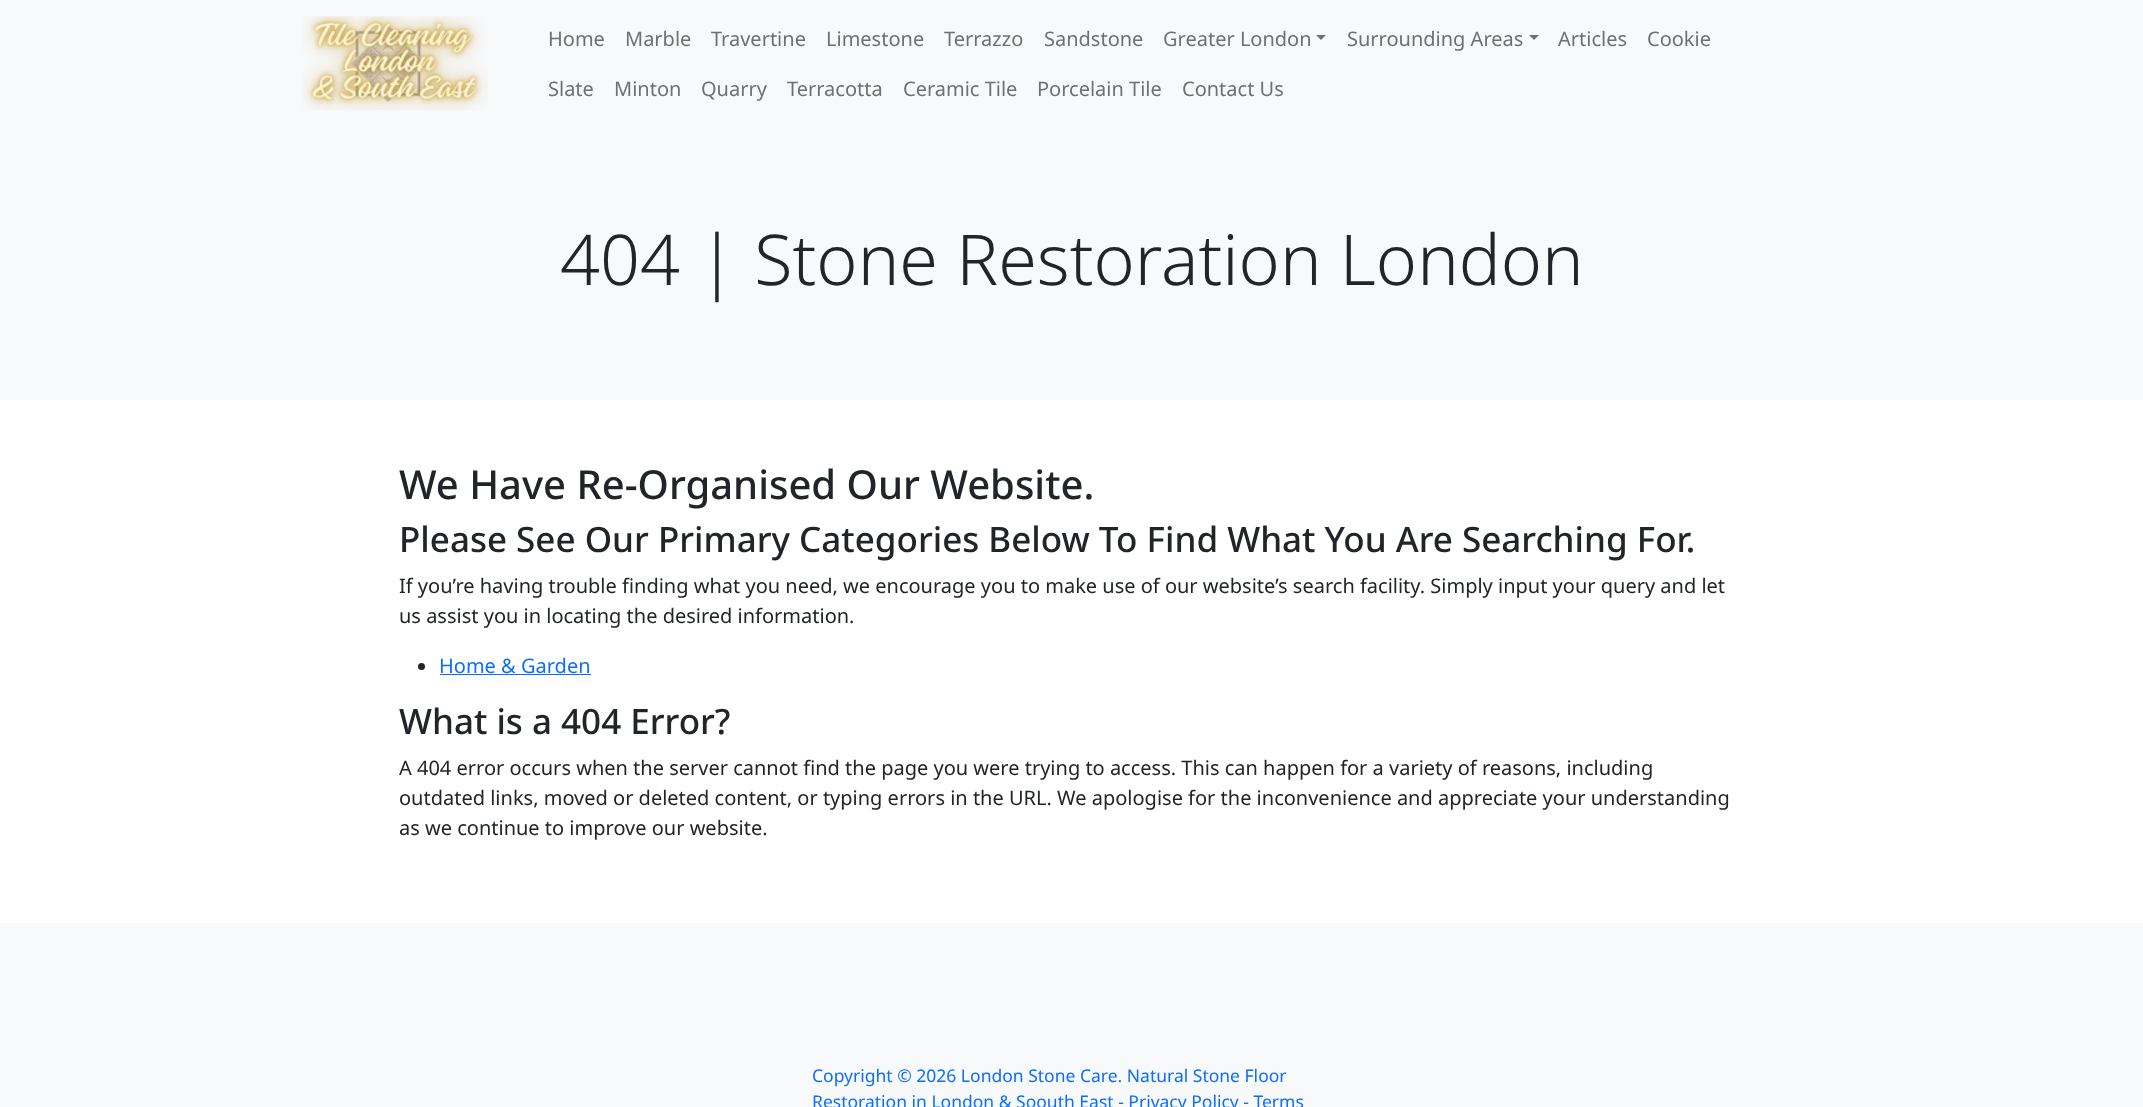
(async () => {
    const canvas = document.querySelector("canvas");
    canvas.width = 2143;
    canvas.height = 1107;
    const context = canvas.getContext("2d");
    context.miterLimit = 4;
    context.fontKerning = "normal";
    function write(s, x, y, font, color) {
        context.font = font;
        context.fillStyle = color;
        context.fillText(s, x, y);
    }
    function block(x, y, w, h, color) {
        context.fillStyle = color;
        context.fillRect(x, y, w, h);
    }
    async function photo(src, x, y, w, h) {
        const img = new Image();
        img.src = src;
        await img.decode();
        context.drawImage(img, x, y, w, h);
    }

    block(0, 0, 2143, 1107, "rgb(255, 255, 255)");
    block(0, 0, 2143, 400, "rgb(248, 249, 250)");
    await photo("media/1.png", 301, 16, 187, 94);
    write("Home", 548, 46, "20px Noto Sans", "rgb(112, 112, 113)");
    write("Marble", 625, 46, "20px Noto Sans", "rgb(112, 112, 113)");
    write("Travertine", 711, 46, "20px Noto Sans", "rgb(112, 112, 113)");
    write("Limestone", 826, 46, "20px Noto Sans", "rgb(112, 112, 113)");
    write("Terrazzo", 944, 46, "20px Noto Sans", "rgb(112, 112, 113)");
    write("Sandstone", 1044, 46, "20px Noto Sans", "rgb(112, 112, 113)");
    write("Greater London", 1163, 46, "20px Noto Sans", "rgb(112, 112, 113)");
    context.beginPath();
    context.moveTo(1316, 35);
    context.lineTo(1326, 35);
    context.lineTo(1321, 40);
    context.closePath();
    context.fill();
    write("Surrounding Areas", 1347, 46, "20px Noto Sans", "rgb(112, 112, 113)");
    context.beginPath();
    context.moveTo(1529, 35);
    context.lineTo(1539, 35);
    context.lineTo(1534, 40);
    context.closePath();
    context.fill();
    write("Articles", 1558, 46, "20px Noto Sans", "rgb(112, 112, 113)");
    write("Cookie", 1647, 46, "20px Noto Sans", "rgb(112, 112, 113)");
    write("Slate", 548, 96, "20px Noto Sans", "rgb(112, 112, 113)");
    write("Minton", 614, 96, "20px Noto Sans", "rgb(112, 112, 113)");
    write("Quarry", 701, 96, "20px Noto Sans", "rgb(112, 112, 113)");
    write("Terracotta", 787, 96, "20px Noto Sans", "rgb(112, 112, 113)");
    write("Ceramic Tile", 903, 96, "20px Noto Sans", "rgb(112, 112, 113)");
    write("Porcelain Tile", 1037, 96, "20px Noto Sans", "rgb(112, 112, 113)");
    write("Contact Us", 1182, 96, "20px Noto Sans", "rgb(112, 112, 113)");
    write("404 | Stone Restoration London", 560, 285, "300 70px Noto Sans", "rgb(33, 37, 41)");
    write("We Have Re-Organised Our Website.", 399, 499, "500 40px Noto Sans", "rgb(33, 37, 41)");
    write("Please See Our Primary Categories Below To Find What You Are Searching For.", 399, 552, "500 35px Noto Sans", "rgb(33, 37, 41)");
    write("If you’re having trouble finding what you need, we encourage you to make use of our website’s search facility. Simply input your query and let", 399, 593, "20px Noto Sans", "rgb(33, 37, 41)");
    write("us assist you in locating the desired information.", 399, 623, "20px Noto Sans", "rgb(33, 37, 41)");
    context.beginPath();
    context.arc(421.5, 666.5, 3.5, 0, Math.PI * 2);
    context.fill();
    write("Home & Garden", 439, 673, "20px Noto Sans", "rgb(13, 110, 253)");
    block(440, 674, 151, 1, "rgb(13, 110, 253)");
    write("What is a 404 Error?", 399, 734, "500 35px Noto Sans", "rgb(33, 37, 41)");
    write("A 404 error occurs when the server cannot find the page you were trying to access. This can happen for a variety of reasons, including", 399, 775, "20px Noto Sans", "rgb(33, 37, 41)");
    write("outdated links, moved or deleted content, or typing errors in the URL. We apologise for the inconvenience and appreciate your understanding", 399, 805, "20px Noto Sans", "rgb(33, 37, 41)");
    write("as we continue to improve our website.", 399, 835, "20px Noto Sans", "rgb(33, 37, 41)");
    block(0, 923, 2143, 184, "rgb(248, 249, 250)");
    write("Copyright © 2026 London Stone Care. Natural Stone Floor", 812, 1082, "17.5px Noto Sans", "rgb(13, 110, 253)");
    write("Restoration in London & Soouth East - Privacy Policy - Terms", 812, 1108, "17.5px Noto Sans", "rgb(13, 110, 253)");
})();
